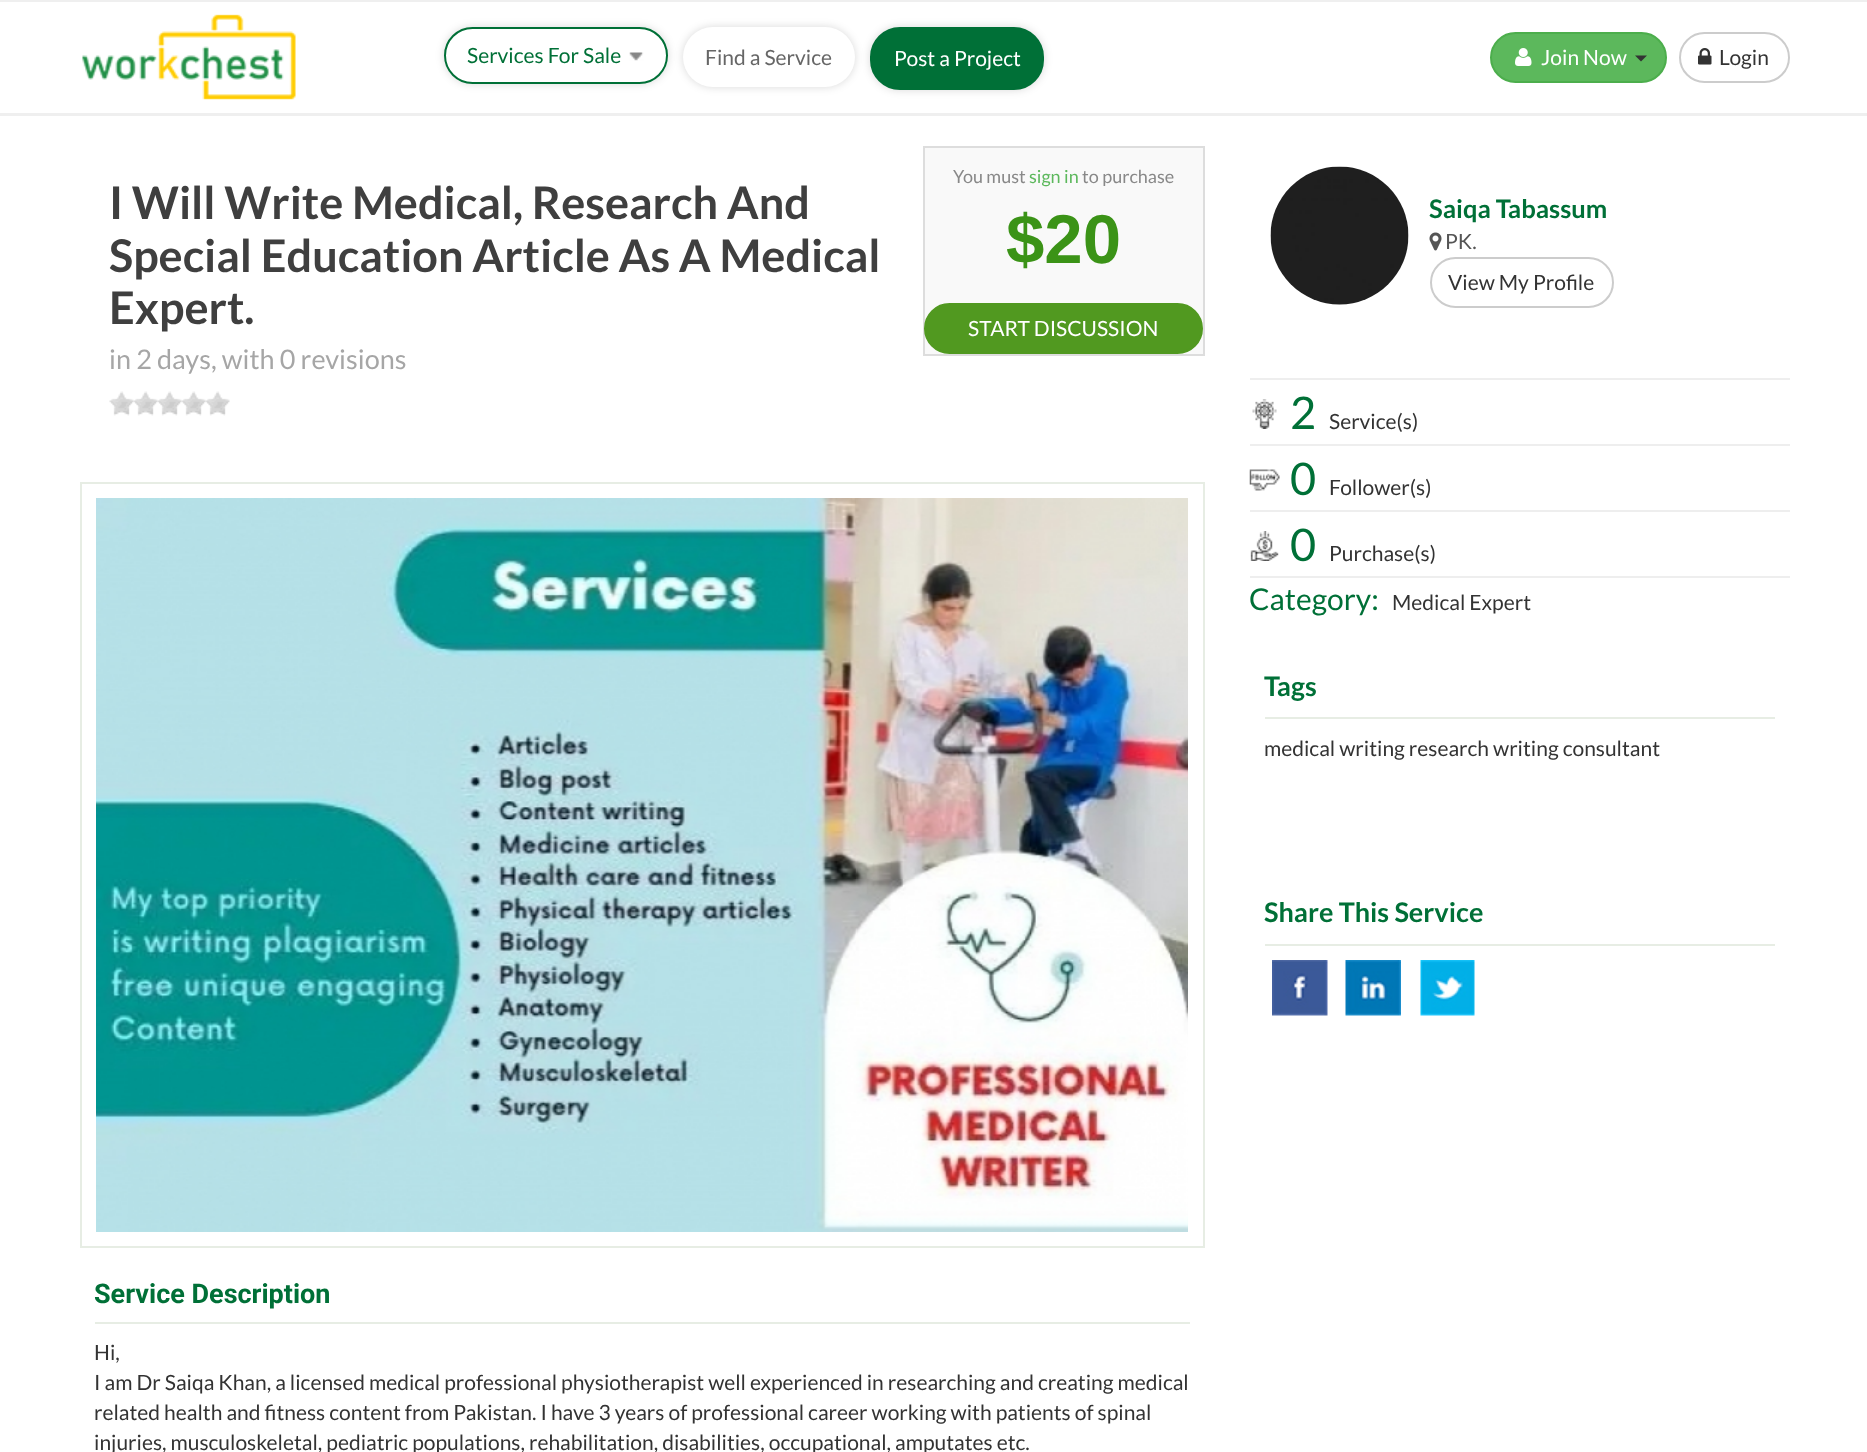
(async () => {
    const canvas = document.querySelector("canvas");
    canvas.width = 1867;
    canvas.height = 1452;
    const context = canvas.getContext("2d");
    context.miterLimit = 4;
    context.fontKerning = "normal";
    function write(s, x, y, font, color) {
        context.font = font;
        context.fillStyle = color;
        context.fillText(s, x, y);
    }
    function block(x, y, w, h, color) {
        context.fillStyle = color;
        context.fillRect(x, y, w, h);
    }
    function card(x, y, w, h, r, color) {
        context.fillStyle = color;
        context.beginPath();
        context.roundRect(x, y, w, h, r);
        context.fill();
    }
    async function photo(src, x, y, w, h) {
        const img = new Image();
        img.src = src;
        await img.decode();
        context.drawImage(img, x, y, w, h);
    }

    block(0, 0, 1867, 1452, "rgb(255, 255, 255)");
    block(0, 0, 1867, 2, "rgb(239, 239, 239)");
    block(0, 113, 1867, 3, "rgb(239, 239, 239)");
    await photo("media/1.png", 82, 14, 214, 86);
    context.fillStyle = "rgba(0, 0, 0, 0.15)";
    context.filter = "blur(4px)";
    context.beginPath();
    context.roundRect(444, 27, 224, 57, 28.5);
    context.fill();
    context.filter = "none";
    context.fillStyle = "rgb(255, 255, 255)";
    context.beginPath();
    context.roundRect(445, 28, 222, 55, 27.5);
    context.fill();
    context.strokeStyle = "rgb(0, 112, 55)";
    context.lineWidth = 2;
    context.stroke();
    write("Services For Sale", 467, 63, "21px Lato", "rgb(0, 112, 55)");
    await photo("media/2.png", 629, 52, 15, 9);
    context.fillStyle = "rgba(0, 0, 0, 0.15)";
    context.filter = "blur(4px)";
    context.beginPath();
    context.roundRect(683, 27, 172, 60, 30);
    context.fill();
    context.filter = "none";
    card(683, 27, 172, 60, 30, "rgb(255, 255, 255)");
    write("Find a Service", 705, 65, "21px Lato", "rgb(102, 102, 102)");
    context.fillStyle = "rgba(0, 0, 0, 0.15)";
    context.filter = "blur(4px)";
    context.beginPath();
    context.roundRect(870, 27, 174, 63, 30);
    context.fill();
    context.filter = "none";
    context.fillStyle = "rgb(0, 112, 55)";
    context.beginPath();
    context.roundRect(871, 28, 172, 61, 29);
    context.fill();
    context.stroke();
    write("Post a Project", 894, 66, "21px Lato", "rgb(255, 255, 255)");
    context.fillStyle = "rgb(92, 184, 92)";
    context.beginPath();
    context.roundRect(1491, 33, 175, 49, 24.5);
    context.fill();
    context.strokeStyle = "rgb(76, 174, 76)";
    context.stroke();
    await photo("media/3.png", 1515, 48, 17, 18);
    write("Join Now", 1541, 65, "21px Lato", "rgb(255, 255, 255)");
    context.fillStyle = "rgb(51, 51, 51)";
    context.beginPath();
    context.moveTo(1635, 55.5);
    context.lineTo(1647, 55.5);
    context.lineTo(1641, 61.5);
    context.closePath();
    context.fill();
    context.beginPath();
    context.roundRect(1680, 33, 109, 49, 24.5);
    context.strokeStyle = "rgb(204, 204, 204)";
    context.stroke();
    await photo("media/4.png", 1698, 48, 14, 17);
    write("Login", 1719, 65, "21px Lato", "rgb(51, 51, 51)");
    write("I Will Write Medical, Research And", 109, 219, "bold 45px Lato", "rgb(63, 63, 63)");
    write("Special Education Article As A Medical", 109, 272, "bold 45px Lato", "rgb(63, 63, 63)");
    write("Expert.", 109, 324, "bold 45px Lato", "rgb(63, 63, 63)");
    write("in 2 days, with 0 revisions", 109, 369, "27px Lato", "rgb(166, 166, 166)");
    await photo("media/5.png", 109, 391, 25, 25);
    await photo("media/6.png", 133, 391, 25, 25);
    await photo("media/6.png", 157, 391, 25, 25);
    await photo("media/6.png", 181, 391, 25, 25);
    await photo("media/6.png", 205, 391, 25, 25);
    context.fillStyle = "rgb(249, 249, 249)";
    context.beginPath();
    context.rect(924, 147, 280, 208);
    context.fill();
    context.strokeStyle = "rgb(221, 221, 221)";
    context.stroke();
    write("You must", 953, 183, "18px Lato", "rgb(136, 136, 136)");
    write("sign in", 1029, 183, "18px Lato", "rgb(92, 184, 92)");
    write("to purchase", 1082, 183, "18px Lato", "rgb(136, 136, 136)");
    write("$20", 1006, 263, "bold 69px Liberation Sans", "rgb(59, 147, 23)");
    context.fillStyle = "rgb(81, 153, 32)";
    context.beginPath();
    context.roundRect(925, 304, 277, 49, 24.5);
    context.fill();
    context.strokeStyle = "rgb(81, 153, 32)";
    context.stroke();
    write("START DISCUSSION", 968, 336, "21px Lato", "rgb(255, 255, 255)");
    context.strokeStyle = "rgb(231, 237, 228)";
    context.strokeRect(81, 483, 1123, 764);
    await photo("media/7.png", 96, 498, 1092, 734);
    block(95, 1322, 1095, 2, "rgb(231, 237, 228)");
    write("Service Description", 94, 1303, "bold 27px Roboto", "rgb(0, 112, 55)");
    write("Hi,", 94, 1360, "21px Lato", "rgb(51, 51, 51)");
    write("I am Dr Saiqa Khan, a licensed medical professional physiotherapist well experienced in researching and creating medical", 94, 1390, "21px Lato", "rgb(51, 51, 51)");
    write("related health and fitness content from Pakistan. I have 3 years of professional career working with patients of spinal", 94, 1420, "21px Lato", "rgb(51, 51, 51)");
    write("injuries, musculoskeletal, pediatric populations, rehabilitation, disabilities, occupational, amputates etc.", 94, 1450, "21px Lato", "rgb(51, 51, 51)");
    await photo("media/8.png", 1270, 166, 139, 139);
    write("Saiqa Tabassum", 1429, 218, "bold 25.5px Lato", "rgb(0, 112, 55)");
    await photo("media/9.png", 1429, 232, 13, 19);
    write("PK.", 1445, 249, "21px Lato", "rgb(85, 85, 85)");
    context.beginPath();
    context.roundRect(1431, 258, 182, 49, 24.5);
    context.strokeStyle = "rgb(204, 204, 204)";
    context.stroke();
    write("View My Profile", 1448, 290, "21px Lato", "rgb(51, 51, 51)");
    block(1250, 378, 540, 2, "rgb(238, 238, 238)");
    await photo("media/10.png", 1252, 399, 25, 30);
    write("2", 1290, 429, "45px Lato", "rgb(0, 112, 55)");
    write("Service(s)", 1329, 429, "21px Lato", "rgb(51, 51, 51)");
    block(1250, 444, 540, 2, "rgb(238, 238, 238)");
    await photo("media/11.png", 1249, 469, 31, 22);
    write("0", 1290, 495, "45px Lato", "rgb(0, 112, 55)");
    write("Follower(s)", 1329, 495, "21px Lato", "rgb(51, 51, 51)");
    block(1250, 510, 540, 2, "rgb(238, 238, 238)");
    await photo("media/12.png", 1250, 531, 29, 30);
    write("0", 1290, 561, "45px Lato", "rgb(0, 112, 55)");
    write("Purchase(s)", 1329, 561, "21px Lato", "rgb(51, 51, 51)");
    block(1250, 576, 540, 2, "rgb(238, 238, 238)");
    write("Category:", 1249, 610, "30px Lato", "rgb(0, 112, 55)");
    write("Medical Expert", 1392, 610, "21px Lato", "rgb(51, 51, 51)");
    block(1265, 717, 510, 2, "rgb(231, 237, 228)");
    write("Tags", 1264, 696, "bold 27px Lato", "rgb(0, 112, 55)");
    write("medical writing research writing consultant", 1264, 756, "21px Lato", "rgb(51, 51, 51)");
    block(1265, 944, 510, 2, "rgb(231, 237, 228)");
    write("Share This Service", 1264, 922, "bold 27px Lato", "rgb(0, 112, 55)");
    await photo("media/13.png", 1272, 960, 56, 56);
    await photo("media/14.png", 1345, 960, 56, 56);
    await photo("media/15.png", 1420, 960, 55, 56);
})();
